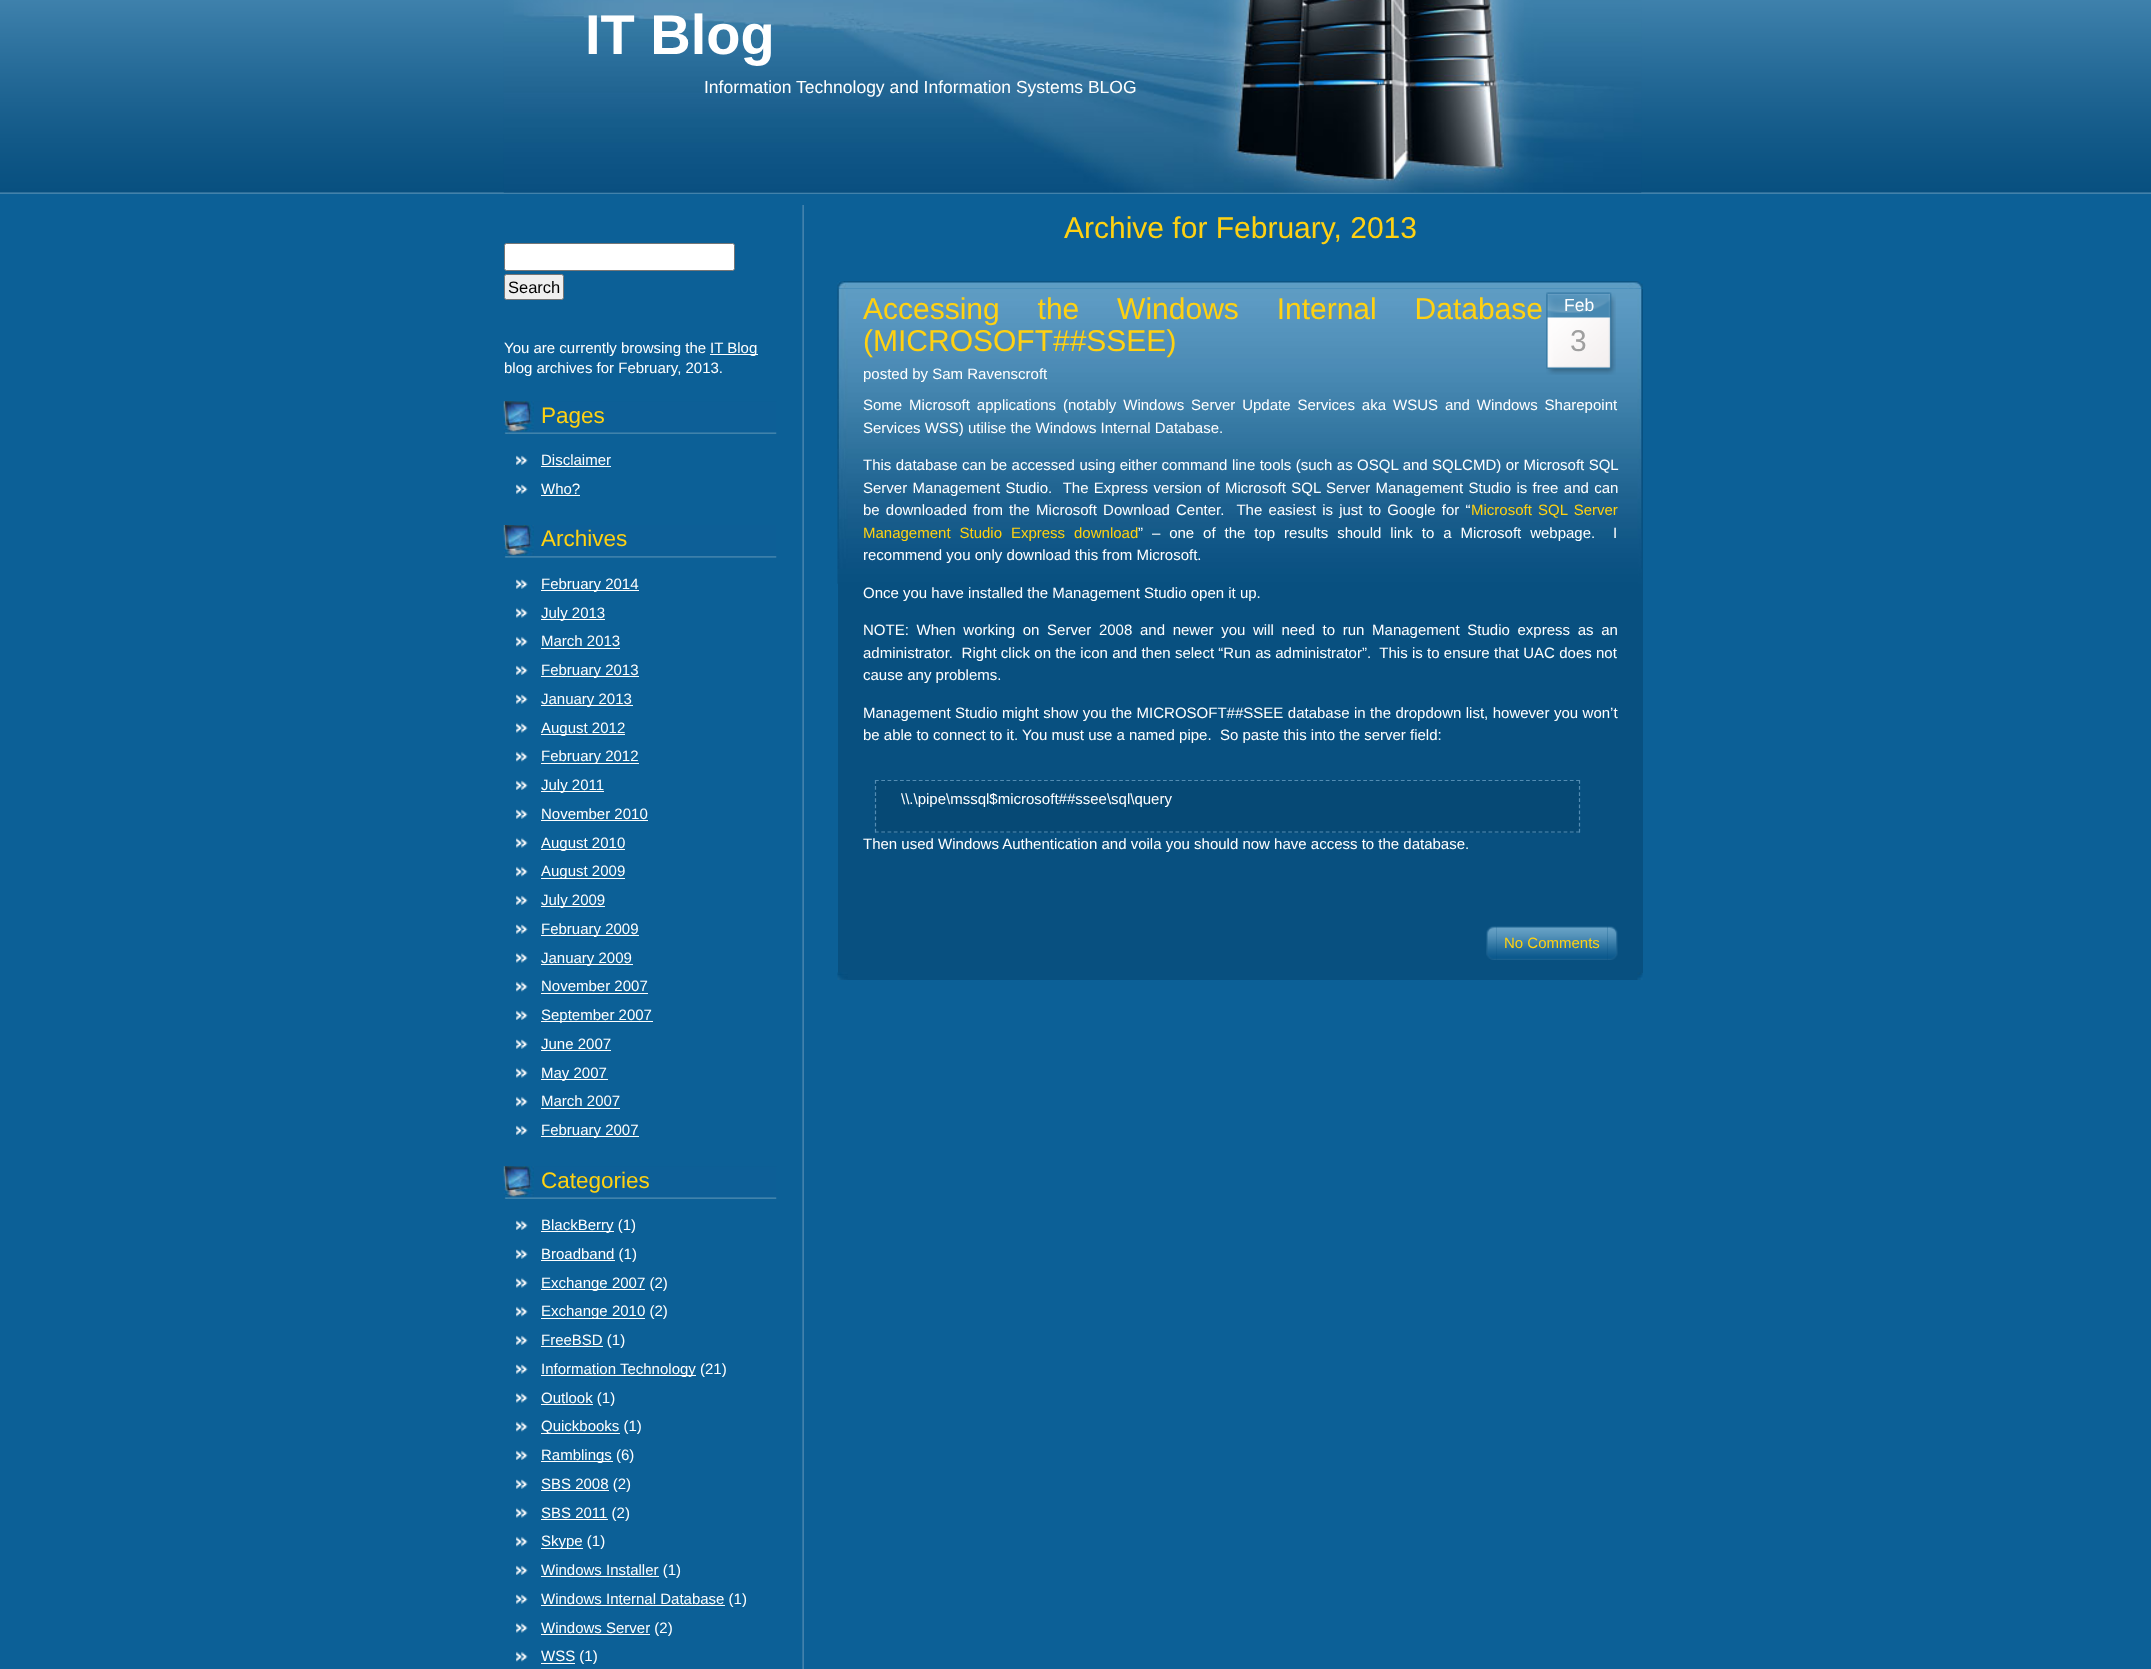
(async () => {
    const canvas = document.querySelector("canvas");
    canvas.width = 2151;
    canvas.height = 1669;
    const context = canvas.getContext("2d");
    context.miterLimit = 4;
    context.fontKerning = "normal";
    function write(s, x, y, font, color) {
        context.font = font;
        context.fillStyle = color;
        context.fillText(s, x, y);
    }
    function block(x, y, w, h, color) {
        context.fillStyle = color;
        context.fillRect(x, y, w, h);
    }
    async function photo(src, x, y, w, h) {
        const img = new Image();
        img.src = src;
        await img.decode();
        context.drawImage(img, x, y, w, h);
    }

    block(0, 0, 2151, 1669, "rgb(12, 96, 151)");
    await photo("media/1.png", 0, 0, 2151, 194);
    await photo("media/2.png", 503, 0, 1139, 193);
    write("IT Blog", 585, 54, "bold 56px Liberation Sans", "rgb(255, 255, 255)");
    write("Information Technology and Information Systems BLOG", 704, 93, "17.5px Liberation Sans", "rgb(255, 255, 255)");
    await photo("media/3.png", 802, 205, 2, 1464);
    context.beginPath();
    context.roundRect(504.5, 243.5, 230, 27, 2);
    context.fill();
    context.strokeStyle = "rgb(118, 118, 118)";
    context.stroke();
    context.fillStyle = "rgb(239, 239, 239)";
    context.beginPath();
    context.roundRect(504.5, 274.5, 59, 25, 2);
    context.fill();
    context.stroke();
    write("Search", 508, 293, "16.5px Liberation Sans", "rgb(0, 0, 0)");
    write("You are currently browsing the", 504, 353, "15px Liberation Sans", "rgb(255, 255, 255)");
    block(710, 354, 48, 1, "rgb(255, 255, 255)");
    write("IT Blog", 710, 353, "15px Liberation Sans", "rgb(255, 255, 255)");
    write("blog archives for February, 2013.", 504, 373, "15px Liberation Sans", "rgb(255, 255, 255)");
    await photo("media/4.png", 503, 401, 274, 33);
    write("Pages", 541, 423, "22.5px Liberation Sans", "rgb(255, 209, 18)");
    await photo("media/5.png", 516, 455, 12, 10);
    write("Disclaimer", 541, 465, "15px Liberation Sans", "rgb(255, 255, 255)");
    block(541, 466, 70, 1, "rgb(255, 255, 255)");
    await photo("media/6.png", 516, 484, 12, 10);
    write("Who?", 541, 494, "15px Liberation Sans", "rgb(255, 255, 255)");
    block(541, 495, 39, 1, "rgb(255, 255, 255)");
    await photo("media/7.png", 503, 525, 274, 33);
    write("Archives", 541, 546, "22.5px Liberation Sans", "rgb(255, 209, 18)");
    await photo("media/6.png", 516, 579, 12, 10);
    block(541, 590, 98, 1, "rgb(255, 255, 255)");
    write("February 2014", 541, 589, "15px Liberation Sans", "rgb(255, 255, 255)");
    await photo("media/8.png", 516, 607, 12, 11);
    block(541, 619, 64, 1, "rgb(255, 255, 255)");
    write("July 2013", 541, 618, "15px Liberation Sans", "rgb(255, 255, 255)");
    await photo("media/9.png", 516, 636, 12, 11);
    write("March 2013", 541, 646, "15px Liberation Sans", "rgb(255, 255, 255)");
    block(541, 648, 79, 1, "rgb(255, 255, 255)");
    await photo("media/5.png", 516, 665, 12, 10);
    block(541, 676, 98, 1, "rgb(255, 255, 255)");
    write("February 2013", 541, 675, "15px Liberation Sans", "rgb(255, 255, 255)");
    await photo("media/6.png", 516, 694, 12, 10);
    block(541, 705, 92, 1, "rgb(255, 255, 255)");
    write("January 2013", 541, 704, "15px Liberation Sans", "rgb(255, 255, 255)");
    await photo("media/8.png", 516, 722, 12, 11);
    block(541, 734, 84, 1, "rgb(255, 255, 255)");
    write("August 2012", 541, 733, "15px Liberation Sans", "rgb(255, 255, 255)");
    await photo("media/9.png", 516, 751, 12, 11);
    block(541, 763, 98, 1, "rgb(255, 255, 255)");
    write("February 2012", 541, 761, "15px Liberation Sans", "rgb(255, 255, 255)");
    await photo("media/5.png", 516, 780, 12, 10);
    block(541, 791, 63, 1, "rgb(255, 255, 255)");
    write("July 2011", 541, 790, "15px Liberation Sans", "rgb(255, 255, 255)");
    await photo("media/6.png", 516, 809, 12, 10);
    write("November 2010", 541, 819, "15px Liberation Sans", "rgb(255, 255, 255)");
    block(541, 820, 107, 1, "rgb(255, 255, 255)");
    await photo("media/8.png", 516, 837, 12, 11);
    block(541, 849, 84, 1, "rgb(255, 255, 255)");
    write("August 2010", 541, 848, "15px Liberation Sans", "rgb(255, 255, 255)");
    await photo("media/9.png", 516, 866, 12, 11);
    block(541, 878, 84, 1, "rgb(255, 255, 255)");
    write("August 2009", 541, 876, "15px Liberation Sans", "rgb(255, 255, 255)");
    await photo("media/5.png", 516, 895, 12, 10);
    block(541, 906, 64, 1, "rgb(255, 255, 255)");
    write("July 2009", 541, 905, "15px Liberation Sans", "rgb(255, 255, 255)");
    await photo("media/6.png", 516, 924, 12, 10);
    block(541, 935, 98, 1, "rgb(255, 255, 255)");
    write("February 2009", 541, 934, "15px Liberation Sans", "rgb(255, 255, 255)");
    await photo("media/8.png", 516, 952, 12, 11);
    block(541, 964, 92, 1, "rgb(255, 255, 255)");
    write("January 2009", 541, 963, "15px Liberation Sans", "rgb(255, 255, 255)");
    await photo("media/9.png", 516, 981, 12, 11);
    write("November 2007", 541, 991, "15px Liberation Sans", "rgb(255, 255, 255)");
    block(541, 993, 107, 1, "rgb(255, 255, 255)");
    await photo("media/10.png", 516, 1010, 12, 10);
    block(541, 1021, 112, 1, "rgb(255, 255, 255)");
    write("September 2007", 541, 1020, "15px Liberation Sans", "rgb(255, 255, 255)");
    await photo("media/6.png", 516, 1039, 12, 10);
    write("June 2007", 541, 1049, "15px Liberation Sans", "rgb(255, 255, 255)");
    block(541, 1050, 70, 1, "rgb(255, 255, 255)");
    await photo("media/8.png", 516, 1067, 12, 11);
    block(541, 1079, 67, 1, "rgb(255, 255, 255)");
    write("May 2007", 541, 1078, "15px Liberation Sans", "rgb(255, 255, 255)");
    await photo("media/9.png", 516, 1096, 12, 11);
    write("March 2007", 541, 1106, "15px Liberation Sans", "rgb(255, 255, 255)");
    block(541, 1108, 79, 1, "rgb(255, 255, 255)");
    await photo("media/5.png", 516, 1125, 12, 10);
    block(541, 1136, 98, 1, "rgb(255, 255, 255)");
    write("February 2007", 541, 1135, "15px Liberation Sans", "rgb(255, 255, 255)");
    await photo("media/11.png", 503, 1166, 274, 33);
    write("Categories", 541, 1188, "22.5px Liberation Sans", "rgb(255, 209, 18)");
    await photo("media/5.png", 516, 1220, 12, 10);
    block(541, 1231, 73, 1, "rgb(255, 255, 255)");
    write("BlackBerry (1)", 541, 1230, "15px Liberation Sans", "rgb(255, 255, 255)");
    await photo("media/6.png", 516, 1249, 12, 10);
    block(541, 1260, 74, 1, "rgb(255, 255, 255)");
    write("Broadband (1)", 541, 1259, "15px Liberation Sans", "rgb(255, 255, 255)");
    await photo("media/8.png", 516, 1277, 12, 11);
    block(541, 1289, 104, 1, "rgb(255, 255, 255)");
    write("Exchange 2007 (2)", 541, 1288, "15px Liberation Sans", "rgb(255, 255, 255)");
    await photo("media/9.png", 516, 1306, 12, 11);
    block(541, 1318, 104, 1, "rgb(255, 255, 255)");
    write("Exchange 2010 (2)", 541, 1316, "15px Liberation Sans", "rgb(255, 255, 255)");
    await photo("media/5.png", 516, 1335, 12, 10);
    block(541, 1346, 62, 1, "rgb(255, 255, 255)");
    write("FreeBSD (1)", 541, 1345, "15px Liberation Sans", "rgb(255, 255, 255)");
    await photo("media/6.png", 516, 1364, 12, 10);
    block(541, 1375, 155, 1, "rgb(255, 255, 255)");
    write("Information Technology (21)", 541, 1374, "15px Liberation Sans", "rgb(255, 255, 255)");
    await photo("media/8.png", 516, 1392, 12, 11);
    block(541, 1404, 52, 1, "rgb(255, 255, 255)");
    write("Outlook (1)", 541, 1403, "15px Liberation Sans", "rgb(255, 255, 255)");
    await photo("media/9.png", 516, 1421, 12, 11);
    block(541, 1433, 79, 1, "rgb(255, 255, 255)");
    write("Quickbooks (1)", 541, 1431, "15px Liberation Sans", "rgb(255, 255, 255)");
    await photo("media/5.png", 516, 1450, 12, 10);
    block(541, 1461, 72, 1, "rgb(255, 255, 255)");
    write("Ramblings (6)", 541, 1460, "15px Liberation Sans", "rgb(255, 255, 255)");
    await photo("media/6.png", 516, 1479, 12, 10);
    block(541, 1490, 68, 1, "rgb(255, 255, 255)");
    write("SBS 2008 (2)", 541, 1489, "15px Liberation Sans", "rgb(255, 255, 255)");
    await photo("media/8.png", 516, 1507, 12, 11);
    block(541, 1519, 67, 1, "rgb(255, 255, 255)");
    write("SBS 2011 (2)", 541, 1518, "15px Liberation Sans", "rgb(255, 255, 255)");
    await photo("media/9.png", 516, 1536, 12, 11);
    block(541, 1548, 42, 1, "rgb(255, 255, 255)");
    write("Skype (1)", 541, 1546, "15px Liberation Sans", "rgb(255, 255, 255)");
    await photo("media/5.png", 516, 1565, 12, 10);
    block(541, 1576, 118, 1, "rgb(255, 255, 255)");
    write("Windows Installer (1)", 541, 1575, "15px Liberation Sans", "rgb(255, 255, 255)");
    await photo("media/6.png", 516, 1594, 12, 10);
    block(541, 1605, 184, 1, "rgb(255, 255, 255)");
    write("Windows Internal Database (1)", 541, 1604, "15px Liberation Sans", "rgb(255, 255, 255)");
    await photo("media/8.png", 516, 1622, 12, 11);
    block(541, 1634, 109, 1, "rgb(255, 255, 255)");
    write("Windows Server (2)", 541, 1633, "15px Liberation Sans", "rgb(255, 255, 255)");
    await photo("media/9.png", 516, 1651, 12, 11);
    block(541, 1663, 34, 1, "rgb(255, 255, 255)");
    write("WSS (1)", 541, 1661, "15px Liberation Sans", "rgb(255, 255, 255)");
    write("Archive for February, 2013", 1064, 238, "30px Liberation Sans", "rgb(255, 209, 18)");
    await photo("media/12.png", 837, 281, 806, 8);
    block(838, 289, 805, 684, "rgb(8, 80, 128)");
    await photo("media/13.png", 837, 288, 805, 296);
    context.wordSpacing = "29.5px";
    write("Accessing the Windows Internal Database", 863, 319, "30px Liberation Sans", "rgb(255, 209, 18)");
    context.wordSpacing = "0px";
    write("(MICROSOFT##SSEE)", 863, 351, "30px Liberation Sans", "rgb(255, 209, 18)");
    write("posted by Sam Ravenscroft", 863, 379, "15px Liberation Sans", "rgb(255, 255, 255)");
    await photo("media/14.png", 1546, 292, 70, 83);
    write("Feb", 1564, 311, "17.5px Liberation Sans", "rgb(255, 255, 255)");
    write("3", 1570, 351, "30px Liberation Sans", "rgb(159, 159, 159)");
    context.wordSpacing = "2.75px";
    write("Some Microsoft applications (notably Windows Server Update Services aka WSUS and Windows Sharepoint", 863, 410, "15px Liberation Sans", "rgb(255, 255, 255)");
    context.wordSpacing = "0px";
    write("Services WSS) utilise the Windows Internal Database.", 863, 433, "15px Liberation Sans", "rgb(255, 255, 255)");
    context.wordSpacing = "0.25px";
    write("This database can be accessed using either command line tools (such as OSQL and SQLCMD) or Microsoft SQL", 863, 470, "15px Liberation Sans", "rgb(255, 255, 255)");
    context.wordSpacing = "1.2px";
    write("Server Management Studio.  The Express version of Microsoft SQL Server Management Studio is free and can", 863, 493, "15px Liberation Sans", "rgb(255, 255, 255)");
    context.wordSpacing = "2px";
    write("be downloaded from the Microsoft Download Center.  The easiest is just to Google for “", 863, 515, "15px Liberation Sans", "rgb(255, 255, 255)");
    write("Microsoft SQL Server", 1471, 515, "15px Liberation Sans", "rgb(255, 209, 18)");
    context.wordSpacing = "4.75px";
    write("Management Studio Express download", 863, 538, "15px Liberation Sans", "rgb(255, 209, 18)");
    write("” – one of the top results should link to a Microsoft webpage.  I", 1138, 538, "15px Liberation Sans", "rgb(255, 255, 255)");
    context.wordSpacing = "0px";
    write("recommend you only download this from Microsoft.", 863, 560, "15px Liberation Sans", "rgb(255, 255, 255)");
    write("Once you have installed the Management Studio open it up.", 863, 598, "15px Liberation Sans", "rgb(255, 255, 255)");
    context.wordSpacing = "3.5px";
    write("NOTE: When working on Server 2008 and newer you will need to run Management Studio express as an", 863, 635, "15px Liberation Sans", "rgb(255, 255, 255)");
    context.wordSpacing = "0.1px";
    write("administrator.  Right click on the icon and then select “Run as administrator”.  This is to ensure that UAC does not", 863, 658, "15px Liberation Sans", "rgb(255, 255, 255)");
    context.wordSpacing = "0px";
    write("cause any problems.", 863, 680, "15px Liberation Sans", "rgb(255, 255, 255)");
    context.wordSpacing = "0.3px";
    write("Management Studio might show you the MICROSOFT##SSEE database in the dropdown list, however you won’t", 863, 718, "15px Liberation Sans", "rgb(255, 255, 255)");
    context.wordSpacing = "0px";
    write("be able to connect to it. You must use a named pipe.  So paste this into the server field:", 863, 740, "15px Liberation Sans", "rgb(255, 255, 255)");
    block(875, 780, 705, 53, "rgb(6, 73, 117)");
    context.beginPath();
    context.moveTo(875, 780.5);
    context.lineTo(1580, 780.5);
    context.strokeStyle = "rgb(84, 141, 179)";
    context.lineWidth = 1.2;
    context.setLineDash([3.75, 2.51]);
    context.stroke();
    context.beginPath();
    context.moveTo(1579.5, 780);
    context.lineTo(1579.5, 832.5);
    context.setLineDash([3.75, 2.35]);
    context.stroke();
    context.beginPath();
    context.moveTo(875, 832);
    context.lineTo(1580, 832);
    context.setLineDash([3.75, 2.51]);
    context.stroke();
    context.beginPath();
    context.moveTo(875.5, 780);
    context.lineTo(875.5, 832.5);
    context.setLineDash([3.75, 2.35]);
    context.stroke();
    write("\\\\.\\pipe\\mssql$microsoft##ssee\\sql\\query", 901, 804, "15px Liberation Sans", "rgb(255, 255, 255)");
    write("Then used Windows Authentication and voila you should now have access to the database.", 863, 849, "15px Liberation Sans", "rgb(255, 255, 255)");
    await photo("media/15.png", 1486, 926, 11, 34);
    await photo("media/16.png", 1496, 926, 112, 34);
    write("No Comments", 1504, 948, "15px Liberation Sans", "rgb(255, 209, 18)");
    await photo("media/17.png", 1607, 926, 11, 34);
    await photo("media/18.png", 837, 972, 806, 8);
})();
